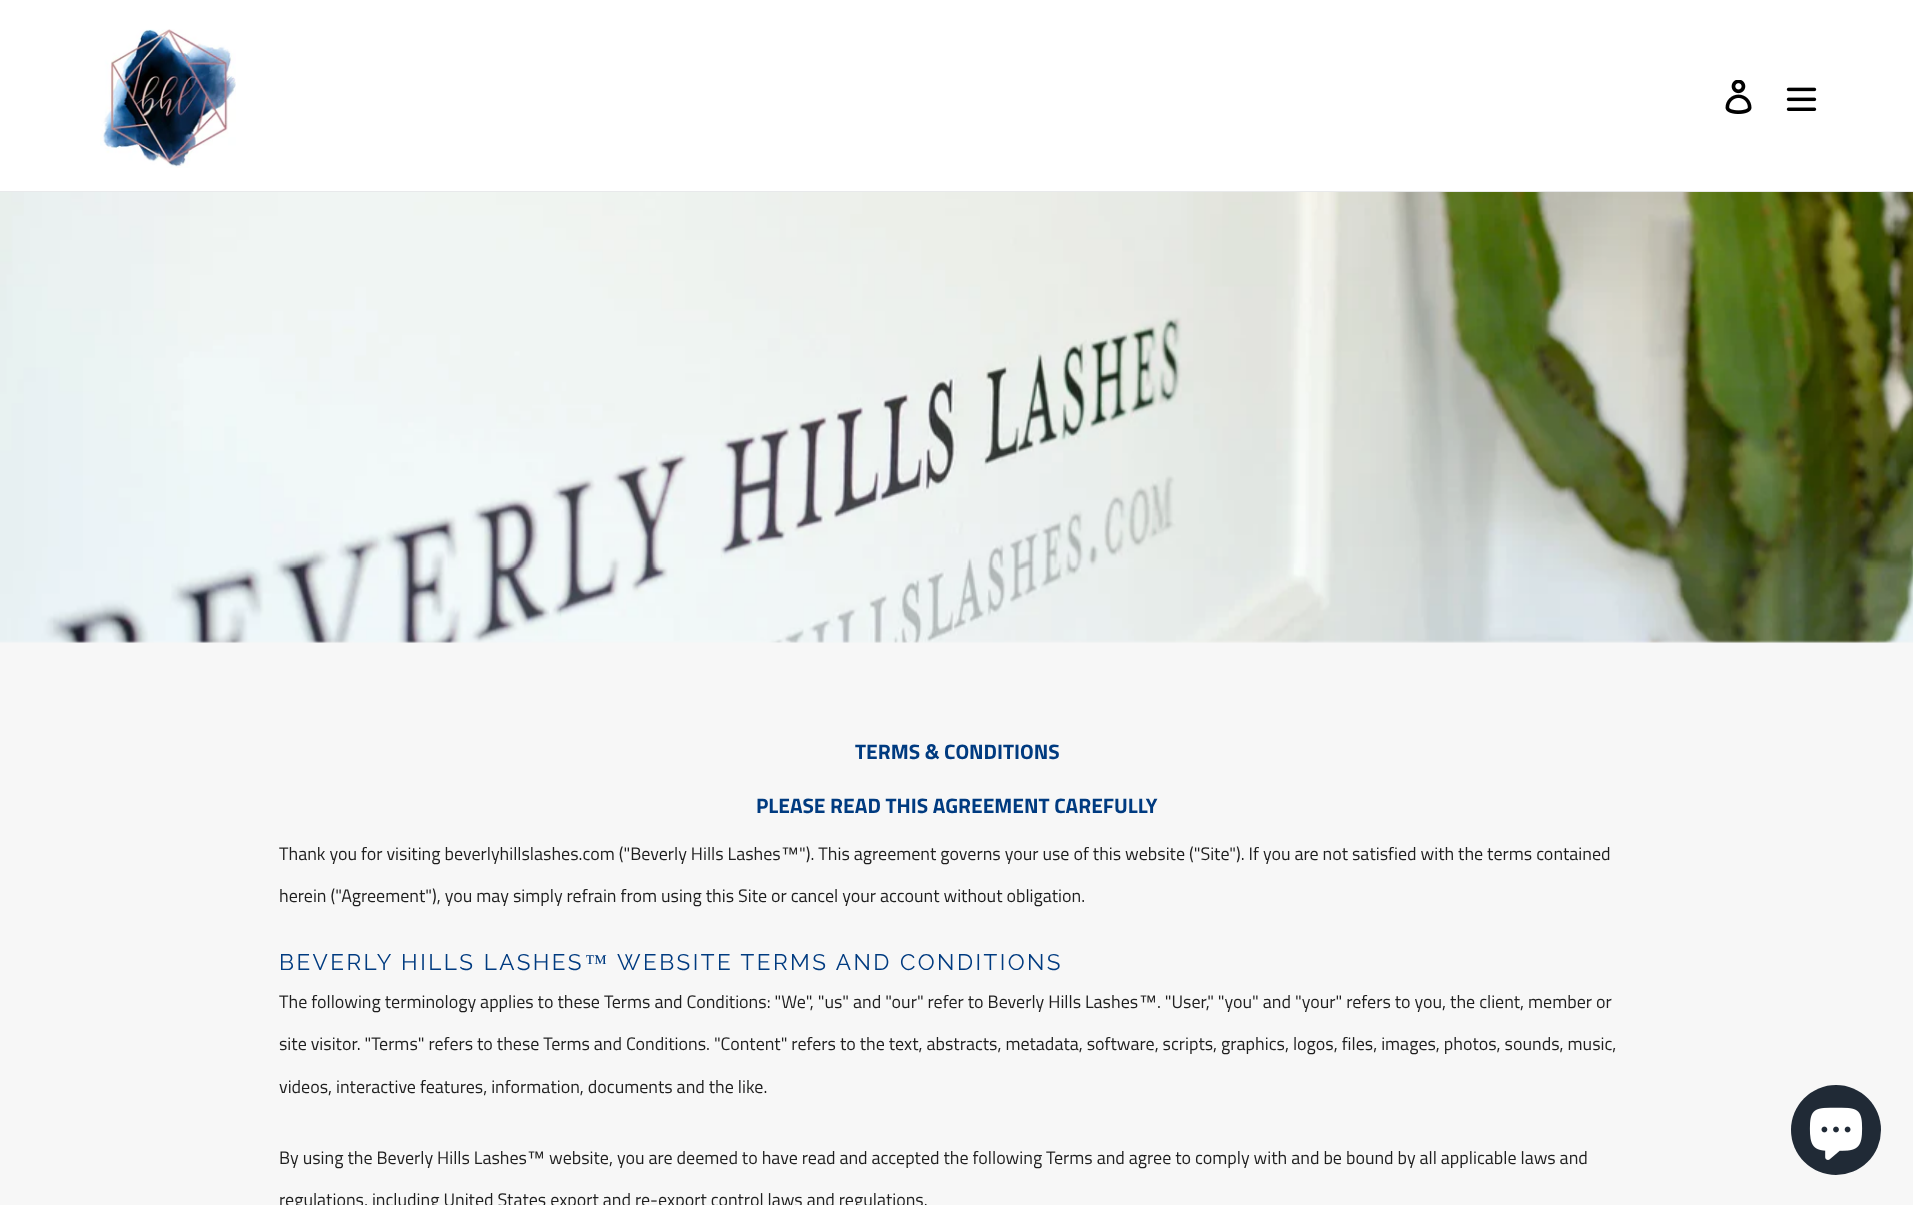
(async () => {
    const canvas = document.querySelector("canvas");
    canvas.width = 1913;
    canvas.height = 1205;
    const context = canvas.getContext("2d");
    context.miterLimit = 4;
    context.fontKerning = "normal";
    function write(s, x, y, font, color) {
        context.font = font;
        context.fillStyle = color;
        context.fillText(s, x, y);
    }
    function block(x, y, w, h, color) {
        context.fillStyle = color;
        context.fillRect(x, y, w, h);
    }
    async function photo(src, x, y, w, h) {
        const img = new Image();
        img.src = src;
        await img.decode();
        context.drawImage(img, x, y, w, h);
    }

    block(0, 0, 1913, 1205, "rgb(255, 255, 255)");
    block(0, 191, 1913, 1, "rgb(232, 233, 235)");
    await photo("media/1.png", 100, 29, 136, 139);
    await photo("media/2.png", 1725, 80, 27, 34);
    await photo("media/3.png", 1786, 87, 31, 24);
    block(0, 640, 1913, 565, "rgb(247, 247, 247)");
    await photo("media/4.png", 0, 192, 1913, 451);
    write("TERMS & CONDITIONS", 855, 759, "bold 21px Titillium Web", "rgb(0, 59, 128)");
    write("PLEASE READ THIS AGREEMENT CAREFULLY", 756, 813, "bold 21px Titillium Web", "rgb(0, 59, 128)");
    write("Thank you for visiting beverlyhillslashes.com (\"Beverly Hills Lashes", 279, 860, "18px Titillium Web", "rgb(31, 31, 31)");
    write("™", 781, 860, "18px Liberation Sans", "rgb(31, 31, 31)");
    write("\"). This agreement governs your use of this website (\"Site\"). If you are not satisfied with the terms contained", 799, 860, "18px Titillium Web", "rgb(31, 31, 31)");
    write("herein (\"Agreement\"), you may simply refrain from using this Site or cancel your account without obligation.", 279, 902, "18px Titillium Web", "rgb(31, 31, 31)");
    context.letterSpacing = "2.45px";
    write("BEVERLY HILLS LASHES", 279, 970, "22.5px Raleway", "rgb(0, 59, 128)");
    write("™", 585, 970, "22.5px Liberation Serif", "rgb(0, 59, 128)");
    write("WEBSITE TERMS AND CONDITIONS", 617, 970, "22.5px Raleway", "rgb(0, 59, 128)");
    context.letterSpacing = "0px";
    write("The following terminology applies to these Terms and Conditions: \"We\", \"us\" and \"our\" refer to Beverly Hills Lashes", 279, 1008, "18px Titillium Web", "rgb(31, 31, 31)");
    write("™", 1139, 1008, "18px Liberation Sans", "rgb(31, 31, 31)");
    write(". \"User,\" \"you\" and \"your\" refers to you, the client, member or", 1157, 1008, "18px Titillium Web", "rgb(31, 31, 31)");
    write("site visitor. \"Terms\" refers to these Terms and Conditions. \"Content\" refers to the text, abstracts, metadata, software, scripts, graphics, logos, files, images, photos, sounds, music,", 279, 1050, "18px Titillium Web", "rgb(31, 31, 31)");
    write("videos, interactive features, information, documents and the like.", 279, 1093, "18px Titillium Web", "rgb(31, 31, 31)");
    write("By using the Beverly Hills Lashes", 279, 1164, "18px Titillium Web", "rgb(31, 31, 31)");
    write("™", 527, 1164, "18px Liberation Sans", "rgb(31, 31, 31)");
    write("website, you are deemed to have read and accepted the following Terms and agree to comply with and be bound by all applicable laws and", 549, 1164, "18px Titillium Web", "rgb(31, 31, 31)");
    write("regulations, including United States export and re-export control laws and regulations.", 279, 1206, "18px Titillium Web", "rgb(31, 31, 31)");
    context.fillStyle = "rgb(32, 42, 54)";
    context.beginPath();
    context.arc(1836, 1130, 45, 0, Math.PI * 2);
    context.fill();
    await photo("media/5.png", 1809, 1107, 54, 53);
})();
